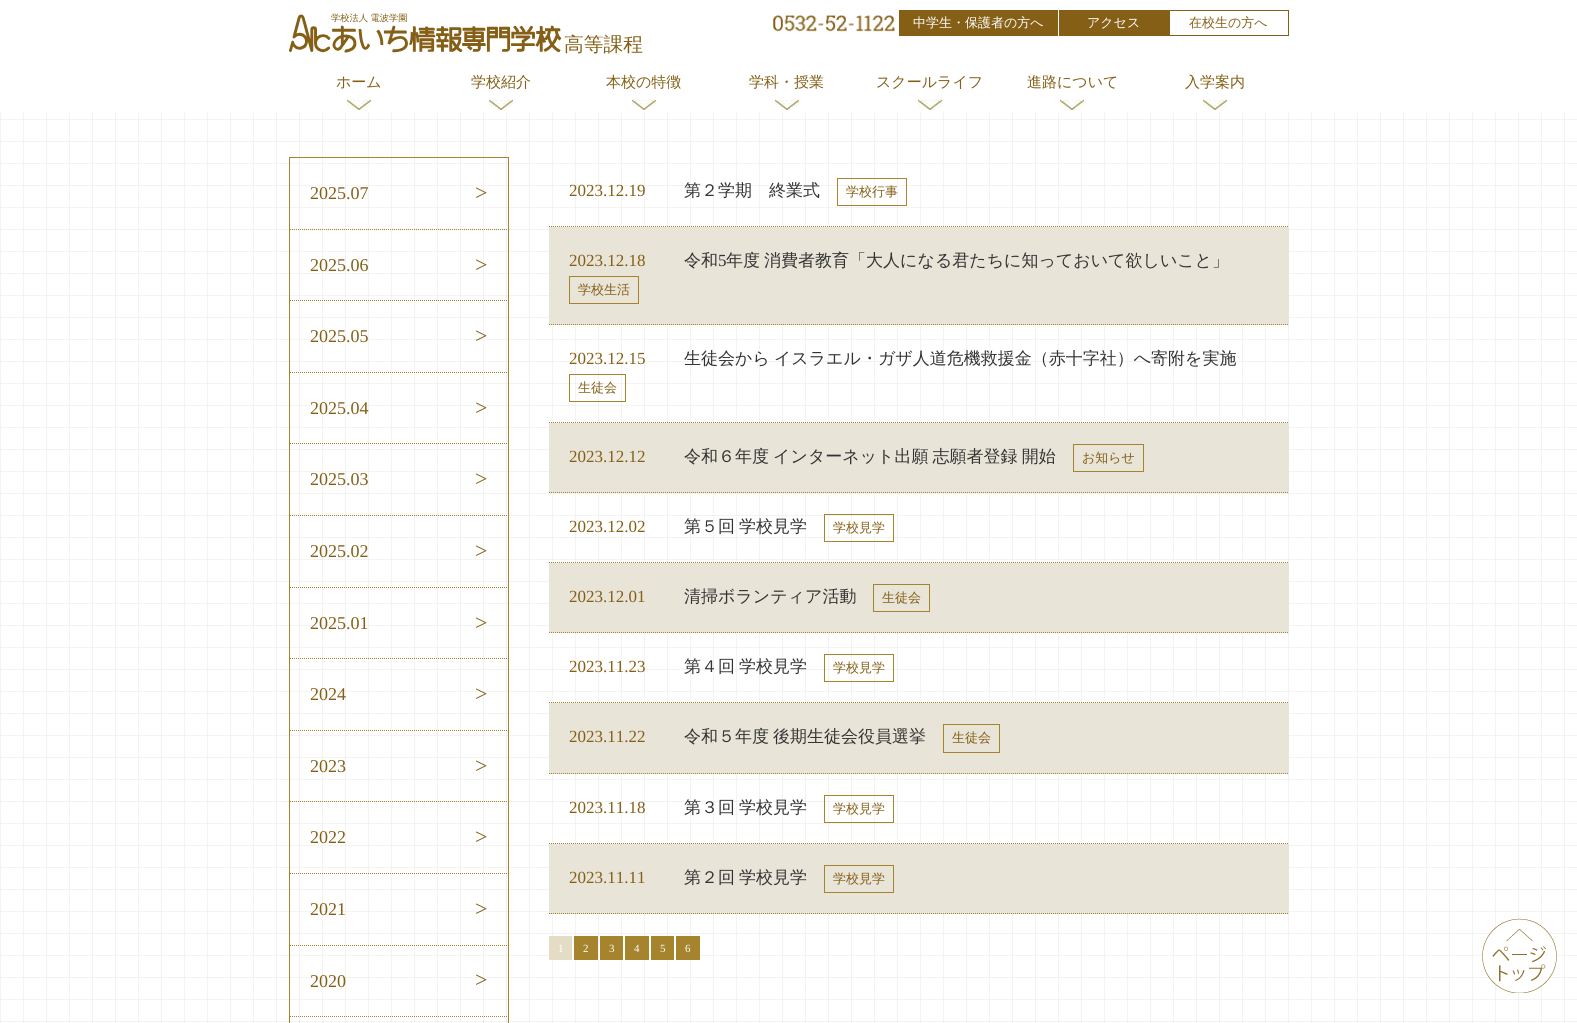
import math
import cairo


def use_color(cr, r, g, b):
  cr.set_source_rgb(r / 255, g / 255, b / 255)

def text(cr, x, y, s, family, size, color, bold=False, italic=False):
  cr.select_font_face(family, cairo.FONT_SLANT_ITALIC if italic else cairo.FONT_SLANT_NORMAL, cairo.FONT_WEIGHT_BOLD if bold else cairo.FONT_WEIGHT_NORMAL)
  cr.set_font_size(size)
  use_color(cr, *color)
  cr.move_to(x, y)
  cr.show_text(s)

def spaced_text(cr, x, y, s, letter, word):
  cr.move_to(x, y)
  for ch in s:
    cr.show_text(ch)
    cr.rel_move_to(letter + word * (ch == ' '), 0)

def box(cr, x, y, w, h, *color):
  use_color(cr, *color)
  cr.rectangle(x, y, w, h)
  cr.fill()

def picture(cr, path, x, y, w, h):
  cr.save()
  cr.set_source_surface(cairo.ImageSurface.create_from_png(path), x, y)
  cr.rectangle(x, y, w, h)
  cr.fill()
  cr.restore()

def draw(cr):
  use_color(cr, 255, 255, 255)
  cr.paint()
  picture(cr, "img_01.png", 289, 13, 354, 41)
  picture(cr, "img_02.png", 773, 15, 122, 17)
  box(cr, 899, 10, 159, 26, 132, 95, 21)
  box(cr, 1059, 10, 110, 26, 132, 95, 21)
  cr.rectangle(1169.5, 10.5, 119, 25)
  cr.set_line_width(1)
  cr.stroke()
  picture(cr, "img_03.png", 347, 99, 24, 11)
  picture(cr, "img_03.png", 489, 99, 24, 11)
  picture(cr, "img_03.png", 632, 99, 24, 11)
  picture(cr, "img_03.png", 775, 99, 24, 11)
  picture(cr, "img_03.png", 918, 99, 24, 11)
  picture(cr, "img_03.png", 1060, 99, 24, 11)
  picture(cr, "img_03.png", 1203, 99, 24, 11)
  picture(cr, "img_04.png", 0, 112, 1577, 911)
  cr.rectangle(289.5, 157.5, 219, 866)
  use_color(cr, 165, 132, 45)
  cr.stroke()
  cr.new_path()
  cr.move_to(290, 229.5)
  cr.line_to(508, 229.5)
  cr.set_dash([1, 1])
  cr.stroke()
  cr.new_path()
  cr.move_to(290, 300.5)
  cr.line_to(508, 300.5)
  cr.stroke()
  cr.new_path()
  cr.move_to(290, 372.5)
  cr.line_to(508, 372.5)
  cr.stroke()
  cr.new_path()
  cr.move_to(290, 443.5)
  cr.line_to(508, 443.5)
  cr.stroke()
  cr.new_path()
  cr.move_to(290, 515.5)
  cr.line_to(508, 515.5)
  cr.stroke()
  cr.new_path()
  cr.move_to(290, 587.5)
  cr.line_to(508, 587.5)
  cr.stroke()
  cr.new_path()
  cr.move_to(290, 658.5)
  cr.line_to(508, 658.5)
  cr.stroke()
  cr.new_path()
  cr.move_to(290, 730.5)
  cr.line_to(508, 730.5)
  cr.stroke()
  cr.new_path()
  cr.move_to(290, 801.5)
  cr.line_to(508, 801.5)
  cr.stroke()
  cr.new_path()
  cr.move_to(290, 873.5)
  cr.line_to(508, 873.5)
  cr.stroke()
  cr.new_path()
  cr.move_to(290, 945.5)
  cr.line_to(508, 945.5)
  cr.stroke()
  cr.new_path()
  cr.move_to(290, 1016.5)
  cr.line_to(508, 1016.5)
  cr.stroke()
  cr.new_path()
  cr.move_to(549, 226.5)
  cr.line_to(1289, 226.5)
  cr.stroke()
  cr.rectangle(837.5, 178.5, 69, 27)
  cr.set_dash([])
  cr.stroke()
  box(cr, 549, 227, 740, 98, 232, 228, 216)
  cr.new_path()
  cr.move_to(549, 324.5)
  cr.line_to(1289, 324.5)
  use_color(cr, 165, 132, 45)
  cr.set_dash([1, 1])
  cr.stroke()
  cr.rectangle(569.5, 276.5, 69, 27)
  cr.set_dash([])
  cr.stroke()
  cr.new_path()
  cr.move_to(549, 422.5)
  cr.line_to(1289, 422.5)
  cr.set_dash([1, 1])
  cr.stroke()
  cr.rectangle(569.5, 374.5, 56, 27)
  cr.set_dash([])
  cr.stroke()
  box(cr, 549, 423, 740, 70, 232, 228, 216)
  cr.new_path()
  cr.move_to(549, 492.5)
  cr.line_to(1289, 492.5)
  use_color(cr, 165, 132, 45)
  cr.set_dash([1, 1])
  cr.stroke()
  cr.rectangle(1073.5, 444.5, 70, 27)
  cr.set_dash([])
  cr.stroke()
  cr.new_path()
  cr.move_to(549, 562.5)
  cr.line_to(1289, 562.5)
  cr.set_dash([1, 1])
  cr.stroke()
  cr.rectangle(824.5, 514.5, 69, 27)
  cr.set_dash([])
  cr.stroke()
  box(cr, 549, 563, 740, 70, 232, 228, 216)
  cr.new_path()
  cr.move_to(549, 632.5)
  cr.line_to(1289, 632.5)
  use_color(cr, 165, 132, 45)
  cr.set_dash([1, 1])
  cr.stroke()
  cr.rectangle(873.5, 584.5, 56, 27)
  cr.set_dash([])
  cr.stroke()
  cr.new_path()
  cr.move_to(549, 702.5)
  cr.line_to(1289, 702.5)
  cr.set_dash([1, 1])
  cr.stroke()
  cr.rectangle(824.5, 654.5, 69, 27)
  cr.set_dash([])
  cr.stroke()
  box(cr, 549, 703, 740, 71, 232, 228, 216)
  cr.new_path()
  cr.move_to(549, 773.5)
  cr.line_to(1289, 773.5)
  use_color(cr, 165, 132, 45)
  cr.set_dash([1, 1])
  cr.stroke()
  cr.rectangle(943.5, 724.5, 56, 28)
  cr.set_dash([])
  cr.stroke()
  cr.new_path()
  cr.move_to(549, 843.5)
  cr.line_to(1289, 843.5)
  cr.set_dash([1, 1])
  cr.stroke()
  cr.rectangle(824.5, 795.5, 69, 27)
  cr.set_dash([])
  cr.stroke()
  box(cr, 549, 844, 740, 70, 232, 228, 216)
  cr.new_path()
  cr.move_to(549, 913.5)
  cr.line_to(1289, 913.5)
  use_color(cr, 165, 132, 45)
  cr.set_dash([1, 1])
  cr.stroke()
  cr.rectangle(824.5, 865.5, 69, 27)
  cr.set_dash([])
  cr.stroke()
  box(cr, 549, 936, 23, 24, 229, 220, 198)
  box(cr, 574, 936, 24, 24, 165, 132, 45)
  box(cr, 600, 936, 23, 24, 165, 132, 45)
  box(cr, 625, 936, 24, 24, 165, 132, 45)
  box(cr, 651, 936, 23, 24, 165, 132, 45)
  box(cr, 676, 936, 24, 24, 165, 132, 45)
  picture(cr, "img_05.png", 1482, 918, 75, 75)
  text(cr, 913, 27, "中学生・保護者の方へ", "WenQuanYi Zen Hei Medium", 13, (255, 255, 255))
  text(cr, 1087, 27, "アクセス", "WenQuanYi Zen Hei Medium", 13, (255, 255, 255))
  text(cr, 1189, 27, "在校生の方へ", "WenQuanYi Zen Hei Medium", 13, (132, 95, 21))
  text(cr, 336, 87, "ホーム", "WenQuanYi Zen Hei Medium", 15, (132, 95, 21))
  text(cr, 471, 87, "学校紹介", "WenQuanYi Zen Hei Medium", 15, (132, 95, 21))
  text(cr, 606, 87, "本校の特徴", "WenQuanYi Zen Hei Medium", 15, (132, 95, 21))
  text(cr, 749, 87, "学科・授業", "WenQuanYi Zen Hei Medium", 15, (132, 95, 21))
  text(cr, 876, 87, "スクールライフ", "WenQuanYi Zen Hei Medium", 15, (132, 95, 21))
  text(cr, 1027, 87, "進路について", "WenQuanYi Zen Hei Medium", 15, (132, 95, 21))
  text(cr, 1185, 87, "入学案内", "WenQuanYi Zen Hei Medium", 15, (132, 95, 21))
  text(cr, 310, 199, "2025.07", "Liberation Serif", 18, (132, 95, 21))
  text(cr, 475, 200, ">", "Liberation Serif", 22, (132, 95, 21))
  text(cr, 310, 271, "2025.06", "Liberation Serif", 18, (132, 95, 21))
  text(cr, 475, 272, ">", "Liberation Serif", 22, (132, 95, 21))
  text(cr, 310, 342, "2025.05", "Liberation Serif", 18, (132, 95, 21))
  text(cr, 475, 343, ">", "Liberation Serif", 22, (132, 95, 21))
  text(cr, 310, 414, "2025.04", "Liberation Serif", 18, (132, 95, 21))
  text(cr, 475, 415, ">", "Liberation Serif", 22, (132, 95, 21))
  text(cr, 310, 485, "2025.03", "Liberation Serif", 18, (132, 95, 21))
  text(cr, 475, 486, ">", "Liberation Serif", 22, (132, 95, 21))
  text(cr, 310, 557, "2025.02", "Liberation Serif", 18, (132, 95, 21))
  text(cr, 475, 558, ">", "Liberation Serif", 22, (132, 95, 21))
  text(cr, 310, 629, "2025.01", "Liberation Serif", 18, (132, 95, 21))
  text(cr, 475, 630, ">", "Liberation Serif", 22, (132, 95, 21))
  text(cr, 310, 700, "2024", "Liberation Serif", 18, (132, 95, 21))
  text(cr, 475, 701, ">", "Liberation Serif", 22, (132, 95, 21))
  text(cr, 310, 772, "2023", "Liberation Serif", 18, (132, 95, 21))
  text(cr, 475, 773, ">", "Liberation Serif", 22, (132, 95, 21))
  text(cr, 310, 843, "2022", "Liberation Serif", 18, (132, 95, 21))
  text(cr, 475, 844, ">", "Liberation Serif", 22, (132, 95, 21))
  text(cr, 310, 915, "2021", "Liberation Serif", 18, (132, 95, 21))
  text(cr, 475, 916, ">", "Liberation Serif", 22, (132, 95, 21))
  text(cr, 310, 987, "2020", "Liberation Serif", 18, (132, 95, 21))
  text(cr, 475, 987, ">", "Liberation Serif", 22, (132, 95, 21))
  text(cr, 569, 196, "2023.12.19", "Liberation Serif", 17, (132, 95, 21))
  text(cr, 684, 196, "第２学期　終業式", "WenQuanYi Zen Hei Medium", 17, (51, 51, 51))
  text(cr, 846, 196, "学校行事", "WenQuanYi Zen Hei Medium", 13, (132, 95, 21))
  text(cr, 569, 266, "2023.12.18", "Liberation Serif", 17, (132, 95, 21))
  text(cr, 684, 266, "令和", "WenQuanYi Zen Hei Medium", 17, (51, 51, 51))
  text(cr, 718, 266, "5", "Liberation Serif", 17, (51, 51, 51))
  cr.select_font_face("WenQuanYi Zen Hei Medium")
  spaced_text(cr, 726, 266, "年度 消費者教育「大人になる君たちに知っておいて欲しいこと」", 0, -1)
  text(cr, 578, 294, "学校生活", "WenQuanYi Zen Hei Medium", 13, (132, 95, 21))
  text(cr, 569, 364, "2023.12.15", "Liberation Serif", 17, (132, 95, 21))
  cr.select_font_face("WenQuanYi Zen Hei Medium")
  use_color(cr, 51, 51, 51)
  spaced_text(cr, 684, 364, "生徒会から イスラエル・ガザ人道危機救援金（赤十字社）へ寄附を実施", 0, -1)
  text(cr, 578, 392, "生徒会", "WenQuanYi Zen Hei Medium", 13, (132, 95, 21))
  text(cr, 569, 462, "2023.12.12", "Liberation Serif", 17, (132, 95, 21))
  cr.select_font_face("WenQuanYi Zen Hei Medium")
  use_color(cr, 51, 51, 51)
  spaced_text(cr, 684, 462, "令和６年度 インターネット出願 志願者登録 開始", 0, -1)
  text(cr, 1082, 462, "お知らせ", "WenQuanYi Zen Hei Medium", 13, (132, 95, 21))
  text(cr, 569, 532, "2023.12.02", "Liberation Serif", 17, (132, 95, 21))
  cr.select_font_face("WenQuanYi Zen Hei Medium")
  use_color(cr, 51, 51, 51)
  spaced_text(cr, 684, 532, "第５回 学校見学", 0, -1)
  text(cr, 833, 532, "学校見学", "WenQuanYi Zen Hei Medium", 13, (132, 95, 21))
  text(cr, 569, 602, "2023.12.01", "Liberation Serif", 17, (132, 95, 21))
  text(cr, 684, 602, "清掃ボランティア活動", "WenQuanYi Zen Hei Medium", 17, (51, 51, 51))
  text(cr, 882, 602, "生徒会", "WenQuanYi Zen Hei Medium", 13, (132, 95, 21))
  text(cr, 569, 672, "2023.11.23", "Liberation Serif", 17, (132, 95, 21))
  cr.select_font_face("WenQuanYi Zen Hei Medium")
  use_color(cr, 51, 51, 51)
  spaced_text(cr, 684, 672, "第４回 学校見学", 0, -1)
  text(cr, 833, 672, "学校見学", "WenQuanYi Zen Hei Medium", 13, (132, 95, 21))
  text(cr, 569, 742, "2023.11.22", "Liberation Serif", 17, (132, 95, 21))
  cr.select_font_face("WenQuanYi Zen Hei Medium")
  use_color(cr, 51, 51, 51)
  spaced_text(cr, 684, 742, "令和５年度 後期生徒会役員選挙", 0, -1)
  text(cr, 952, 742, "生徒会", "WenQuanYi Zen Hei Medium", 13, (132, 95, 21))
  text(cr, 569, 813, "2023.11.18", "Liberation Serif", 17, (132, 95, 21))
  cr.select_font_face("WenQuanYi Zen Hei Medium")
  use_color(cr, 51, 51, 51)
  spaced_text(cr, 684, 813, "第３回 学校見学", 0, -1)
  text(cr, 833, 813, "学校見学", "WenQuanYi Zen Hei Medium", 13, (132, 95, 21))
  text(cr, 569, 883, "2023.11.11", "Liberation Serif", 17, (132, 95, 21))
  cr.select_font_face("WenQuanYi Zen Hei Medium")
  use_color(cr, 51, 51, 51)
  spaced_text(cr, 684, 883, "第２回 学校見学", 0, -1)
  text(cr, 833, 883, "学校見学", "WenQuanYi Zen Hei Medium", 13, (132, 95, 21))
  text(cr, 558, 952, "1", "Liberation Serif", 11, (255, 255, 255))
  text(cr, 583, 952, "2", "Liberation Serif", 11, (255, 255, 255))
  text(cr, 609, 952, "3", "Liberation Serif", 11, (255, 255, 255))
  text(cr, 634, 952, "4", "Liberation Serif", 11, (255, 255, 255))
  text(cr, 660, 952, "5", "Liberation Serif", 11, (255, 255, 255))
  text(cr, 685, 952, "6", "Liberation Serif", 11, (255, 255, 255))


surface = cairo.ImageSurface(cairo.FORMAT_RGB24, 1577, 1023)
cr = cairo.Context(surface)
options = cairo.FontOptions()
options.set_hint_metrics(cairo.HINT_METRICS_OFF)
options.set_hint_style(cairo.HINT_STYLE_NONE)
cr.set_font_options(options)
cr.set_miter_limit(4)
draw(cr)
surface.write_to_png("out.png")
